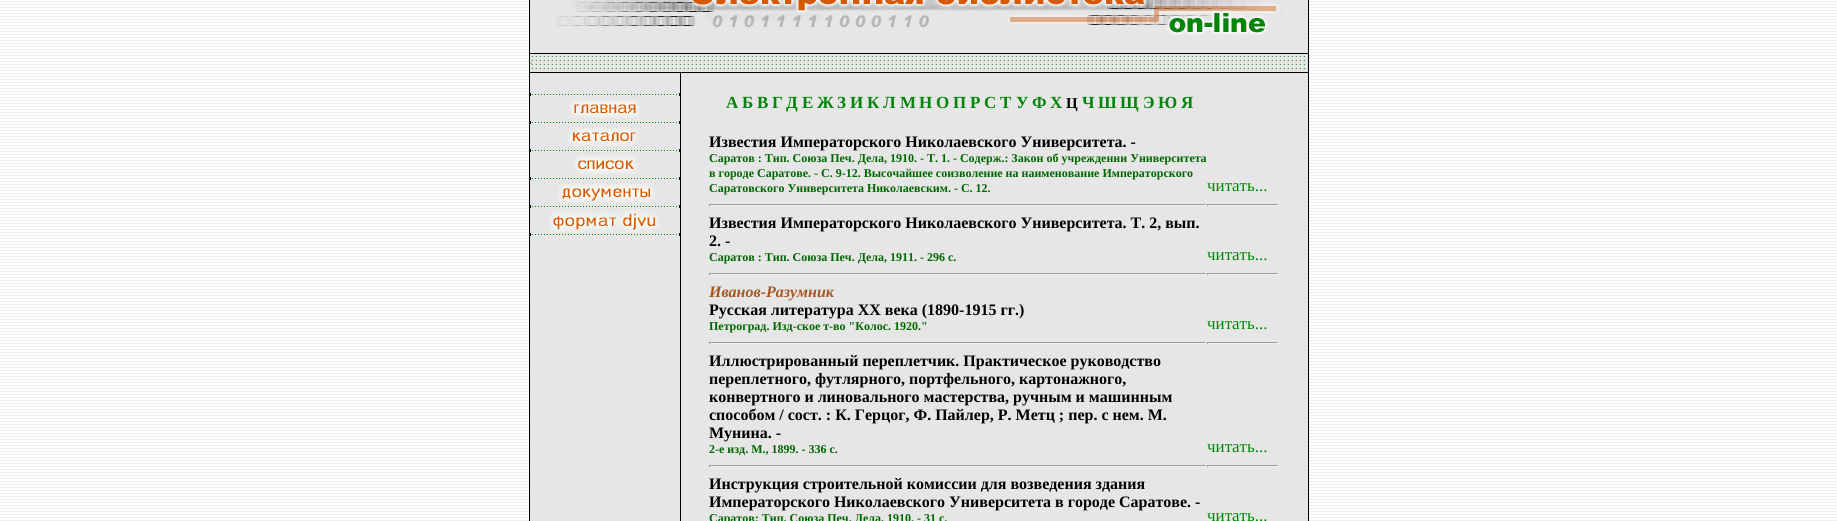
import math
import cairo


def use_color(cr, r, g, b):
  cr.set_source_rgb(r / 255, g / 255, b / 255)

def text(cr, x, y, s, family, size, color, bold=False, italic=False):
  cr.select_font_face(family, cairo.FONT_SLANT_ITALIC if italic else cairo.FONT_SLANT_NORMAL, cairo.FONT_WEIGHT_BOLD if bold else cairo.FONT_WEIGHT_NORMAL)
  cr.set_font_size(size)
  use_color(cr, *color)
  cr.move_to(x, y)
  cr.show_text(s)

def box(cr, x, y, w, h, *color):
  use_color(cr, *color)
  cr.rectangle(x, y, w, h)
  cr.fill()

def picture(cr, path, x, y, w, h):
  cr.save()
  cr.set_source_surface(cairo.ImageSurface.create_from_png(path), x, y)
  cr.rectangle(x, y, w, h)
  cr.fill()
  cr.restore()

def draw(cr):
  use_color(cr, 255, 255, 255)
  cr.paint()
  picture(cr, "img_01.png", 0, 1, 1837, 520)
  box(cr, 530, 0, 778, 521, 230, 230, 230)
  box(cr, 1308, 0, 1, 53, 0, 0, 0)
  box(cr, 529, 0, 1, 53, 0, 0, 0)
  picture(cr, "img_02.png", 556, 0, 731, 35)
  picture(cr, "img_03.png", 531, 55, 777, 17)
  cr.rectangle(529.5, 53.5, 779, 19)
  cr.set_line_width(1)
  cr.stroke()
  picture(cr, "img_04.png", 530, 62, 2, 2)
  box(cr, 680, 73, 1, 448, 0, 0, 0)
  box(cr, 529, 73, 1, 448, 0, 0, 0)
  picture(cr, "img_05.png", 532, 94, 147, 1)
  box(cr, 679, 93, 1, 3, 0, 0, 0)
  box(cr, 530, 93, 1, 3, 0, 0, 0)
  picture(cr, "img_06.png", 570, 100, 70, 18)
  picture(cr, "img_05.png", 532, 122, 147, 1)
  box(cr, 679, 121, 1, 3, 0, 0, 0)
  box(cr, 530, 121, 1, 3, 0, 0, 0)
  picture(cr, "img_07.png", 568, 128, 70, 18)
  picture(cr, "img_05.png", 532, 150, 147, 1)
  box(cr, 679, 149, 1, 3, 0, 0, 0)
  box(cr, 530, 149, 1, 3, 0, 0, 0)
  picture(cr, "img_08.png", 574, 155, 63, 19)
  picture(cr, "img_05.png", 532, 178, 147, 1)
  box(cr, 679, 177, 1, 3, 0, 0, 0)
  box(cr, 530, 177, 1, 3, 0, 0, 0)
  picture(cr, "img_09.png", 558, 184, 97, 20)
  picture(cr, "img_05.png", 532, 206, 147, 1)
  box(cr, 679, 205, 1, 3, 0, 0, 0)
  box(cr, 530, 205, 1, 3, 0, 0, 0)
  picture(cr, "img_10.png", 549, 210, 111, 23)
  picture(cr, "img_05.png", 532, 234, 147, 1)
  box(cr, 679, 233, 1, 3, 0, 0, 0)
  box(cr, 530, 233, 1, 3, 0, 0, 0)
  box(cr, 1308, 73, 1, 448, 0, 0, 0)
  box(cr, 709, 204, 570, 1, 159, 159, 159)
  box(cr, 1206, 204, 1, 2, 238, 238, 238)
  box(cr, 709, 205, 498, 1, 238, 238, 238)
  box(cr, 709, 204, 1, 2, 159, 159, 159)
  box(cr, 1278, 204, 1, 2, 238, 238, 238)
  box(cr, 1207, 205, 72, 1, 238, 238, 238)
  box(cr, 1207, 204, 1, 2, 159, 159, 159)
  box(cr, 709, 273, 570, 1, 159, 159, 159)
  box(cr, 1206, 273, 1, 2, 238, 238, 238)
  box(cr, 709, 274, 498, 1, 238, 238, 238)
  box(cr, 709, 273, 1, 2, 159, 159, 159)
  box(cr, 1278, 273, 1, 2, 238, 238, 238)
  box(cr, 1207, 274, 72, 1, 238, 238, 238)
  box(cr, 1207, 273, 1, 2, 159, 159, 159)
  box(cr, 709, 342, 570, 1, 159, 159, 159)
  box(cr, 1206, 342, 1, 2, 238, 238, 238)
  box(cr, 709, 343, 498, 1, 238, 238, 238)
  box(cr, 709, 342, 1, 2, 159, 159, 159)
  box(cr, 1278, 342, 1, 2, 238, 238, 238)
  box(cr, 1207, 343, 72, 1, 238, 238, 238)
  box(cr, 1207, 342, 1, 2, 159, 159, 159)
  box(cr, 709, 465, 570, 1, 159, 159, 159)
  box(cr, 1206, 465, 1, 2, 238, 238, 238)
  box(cr, 709, 466, 498, 1, 238, 238, 238)
  box(cr, 709, 465, 1, 2, 159, 159, 159)
  box(cr, 1278, 465, 1, 2, 238, 238, 238)
  box(cr, 1207, 466, 72, 1, 238, 238, 238)
  box(cr, 1207, 465, 1, 2, 159, 159, 159)
  text(cr, 726, 108, "А", "Liberation Serif", 17, (2, 133, 8), bold=True)
  text(cr, 742, 108, "Б", "Liberation Serif", 17, (2, 133, 8), bold=True)
  text(cr, 757, 108, "В", "Liberation Serif", 17, (2, 133, 8), bold=True)
  text(cr, 772, 108, "Г", "Liberation Serif", 17, (2, 133, 8), bold=True)
  text(cr, 786, 108, "Д", "Liberation Serif", 17, (2, 133, 8), bold=True)
  text(cr, 802, 108, "Е", "Liberation Serif", 17, (2, 133, 8), bold=True)
  text(cr, 817, 108, "Ж", "Liberation Serif", 17, (2, 133, 8), bold=True)
  text(cr, 837, 108, "З", "Liberation Serif", 17, (2, 133, 8), bold=True)
  text(cr, 850, 108, "И", "Liberation Serif", 17, (2, 133, 8), bold=True)
  text(cr, 867, 108, "К", "Liberation Serif", 17, (2, 133, 8), bold=True)
  text(cr, 883, 108, "Л", "Liberation Serif", 17, (2, 133, 8), bold=True)
  text(cr, 900, 108, "М", "Liberation Serif", 17, (2, 133, 8), bold=True)
  text(cr, 919, 108, "Н", "Liberation Serif", 17, (2, 133, 8), bold=True)
  text(cr, 936, 108, "О", "Liberation Serif", 17, (2, 133, 8), bold=True)
  text(cr, 953, 108, "П", "Liberation Serif", 17, (2, 133, 8), bold=True)
  text(cr, 970, 108, "Р", "Liberation Serif", 17, (2, 133, 8), bold=True)
  text(cr, 984, 108, "С", "Liberation Serif", 17, (2, 133, 8), bold=True)
  text(cr, 1000, 108, "Т", "Liberation Serif", 17, (2, 133, 8), bold=True)
  text(cr, 1016, 108, "У", "Liberation Serif", 17, (2, 133, 8), bold=True)
  text(cr, 1032, 108, "Ф", "Liberation Serif", 17, (2, 133, 8), bold=True)
  text(cr, 1050, 108, "Х", "Liberation Serif", 17, (2, 133, 8), bold=True)
  text(cr, 1066, 108, "Ц", "Liberation Serif", 15, (0, 0, 0), bold=True)
  text(cr, 1082, 108, "Ч", "Liberation Serif", 17, (2, 133, 8), bold=True)
  text(cr, 1098, 108, "Ш", "Liberation Serif", 17, (2, 133, 8), bold=True)
  text(cr, 1120, 108, "Щ", "Liberation Serif", 17, (2, 133, 8), bold=True)
  text(cr, 1143, 108, "Э", "Liberation Serif", 17, (2, 133, 8), bold=True)
  text(cr, 1158, 108, "Ю", "Liberation Serif", 17, (2, 133, 8), bold=True)
  text(cr, 1181, 108, "Я", "Liberation Serif", 17, (2, 133, 8), bold=True)
  text(cr, 709, 147, "Известия Императорского Николаевского Университета. -", "Liberation Serif", 16, (0, 0, 0), bold=True)
  text(cr, 709, 162, "Саратов : Тип. Союза Печ. Дела, 1910. - Т. 1. - Содерж.: Закон об учреждении Университета", "Liberation Serif", 12, (0, 102, 0), bold=True)
  text(cr, 709, 177, "в городе Саратове. - С. 9-12. Высочайшее соизволение на наименование Императорского", "Liberation Serif", 12, (0, 102, 0), bold=True)
  text(cr, 709, 192, "Саратовского Университета Николаевским. - С. 12.", "Liberation Serif", 12, (0, 102, 0), bold=True)
  text(cr, 1207, 191, "читать...", "Liberation Serif", 17, (2, 133, 8))
  text(cr, 709, 228, "Известия Императорского Николаевского Университета. Т. 2, вып.", "Liberation Serif", 16, (0, 0, 0), bold=True)
  text(cr, 709, 246, "2. -", "Liberation Serif", 16, (0, 0, 0), bold=True)
  text(cr, 709, 261, "Саратов : Тип. Союза Печ. Дела, 1911. - 296 с.", "Liberation Serif", 12, (0, 102, 0), bold=True)
  text(cr, 1207, 260, "читать...", "Liberation Serif", 17, (2, 133, 8))
  text(cr, 709, 297, "Иванов-Разумник", "Liberation Serif", 16, (167, 87, 34), bold=True, italic=True)
  text(cr, 709, 315, "Русская литература XX века (1890-1915 гг.)", "Liberation Serif", 16, (0, 0, 0), bold=True)
  text(cr, 709, 330, "Петроград. Изд-ское т-во \"Колос. 1920.\"", "Liberation Serif", 12, (0, 102, 0), bold=True)
  text(cr, 1207, 329, "читать...", "Liberation Serif", 17, (2, 133, 8))
  text(cr, 709, 366, "Иллюстрированный переплетчик. Практическое руководство", "Liberation Serif", 16, (0, 0, 0), bold=True)
  text(cr, 709, 384, "переплетного, футлярного, портфельного, картонажного,", "Liberation Serif", 16, (0, 0, 0), bold=True)
  text(cr, 709, 402, "конвертного и линовального мастерства, ручным и машинным", "Liberation Serif", 16, (0, 0, 0), bold=True)
  text(cr, 709, 420, "способом / сост. : К. Герцог, Ф. Пайлер, Р. Метц ; пер. с нем. М.", "Liberation Serif", 16, (0, 0, 0), bold=True)
  text(cr, 709, 438, "Мунина. -", "Liberation Serif", 16, (0, 0, 0), bold=True)
  text(cr, 709, 453, "2-е изд. М., 1899. - 336 с.", "Liberation Serif", 12, (0, 102, 0), bold=True)
  text(cr, 1207, 452, "читать...", "Liberation Serif", 17, (2, 133, 8))
  text(cr, 709, 489, "Инструкция строительной комиссии для возведения здания", "Liberation Serif", 16, (0, 0, 0), bold=True)
  text(cr, 709, 507, "Императорского Николаевского Университета в городе Саратове. -", "Liberation Serif", 16, (0, 0, 0), bold=True)
  text(cr, 709, 522, "Саратов: Тип. Союза Печ. Дела, 1910. - 31 с.", "Liberation Serif", 12, (0, 102, 0), bold=True)
  text(cr, 1207, 521, "читать...", "Liberation Serif", 17, (2, 133, 8))


surface = cairo.ImageSurface(cairo.FORMAT_RGB24, 1837, 521)
cr = cairo.Context(surface)
options = cairo.FontOptions()
options.set_hint_metrics(cairo.HINT_METRICS_OFF)
options.set_hint_style(cairo.HINT_STYLE_NONE)
cr.set_font_options(options)
cr.set_miter_limit(4)
draw(cr)
surface.write_to_png("out.png")
